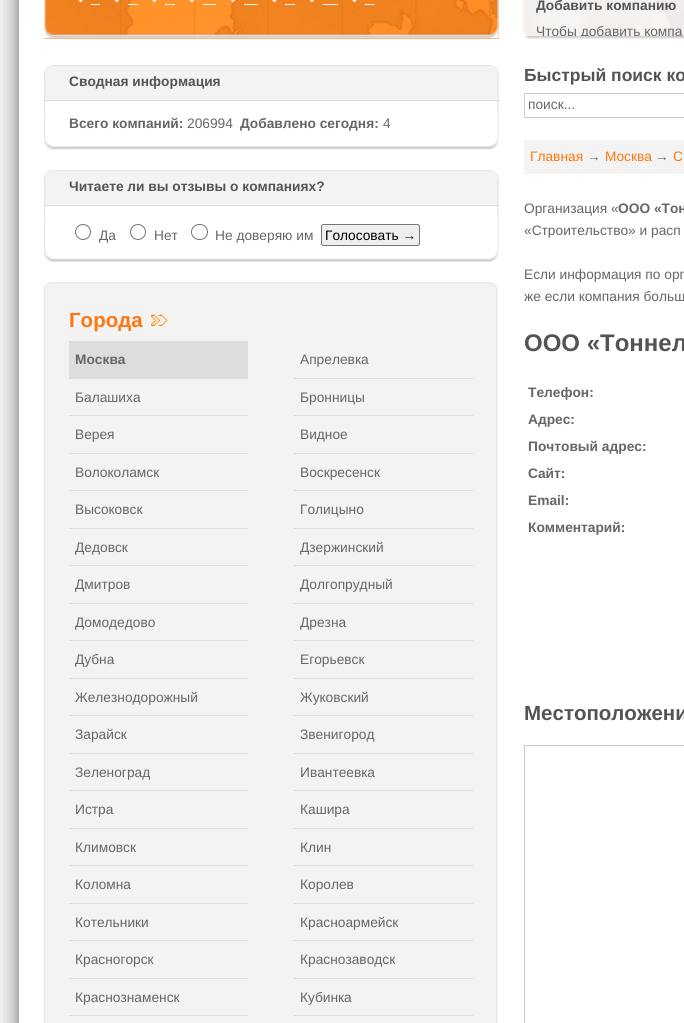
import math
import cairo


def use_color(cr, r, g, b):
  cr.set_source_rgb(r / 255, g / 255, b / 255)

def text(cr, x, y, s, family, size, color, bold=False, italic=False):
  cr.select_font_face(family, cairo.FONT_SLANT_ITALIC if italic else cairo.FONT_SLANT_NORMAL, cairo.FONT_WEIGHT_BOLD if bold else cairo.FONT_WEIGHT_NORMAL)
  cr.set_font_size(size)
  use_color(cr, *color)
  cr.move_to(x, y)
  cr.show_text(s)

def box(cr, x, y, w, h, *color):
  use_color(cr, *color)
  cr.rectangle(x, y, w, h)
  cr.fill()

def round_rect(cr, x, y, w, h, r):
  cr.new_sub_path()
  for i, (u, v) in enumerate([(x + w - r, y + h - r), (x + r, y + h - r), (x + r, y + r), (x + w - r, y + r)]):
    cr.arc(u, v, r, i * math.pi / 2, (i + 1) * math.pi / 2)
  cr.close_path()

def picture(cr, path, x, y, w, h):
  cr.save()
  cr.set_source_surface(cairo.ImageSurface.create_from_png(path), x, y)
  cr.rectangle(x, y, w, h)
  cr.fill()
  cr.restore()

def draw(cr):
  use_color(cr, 239, 239, 239)
  cr.paint()
  picture(cr, "img_01.png", 3, 0, 16, 1023)
  box(cr, 19, 0, 665, 1023, 255, 255, 255)
  box(cr, 44, 0, 455, 39, 255, 118, 14)
  picture(cr, "img_02.png", 43, 0, 456, 39)
  picture(cr, "img_03.png", 78, 0, 5, 3)
  box(cr, 91, 4, 9, 1, 255, 255, 255)
  picture(cr, "img_04.png", 114, 0, 5, 3)
  box(cr, 128, 4, 10, 1, 255, 255, 255)
  picture(cr, "img_05.png", 152, 0, 5, 3)
  box(cr, 165, 4, 10, 1, 255, 255, 255)
  picture(cr, "img_06.png", 189, 0, 5, 3)
  box(cr, 203, 4, 13, 1, 255, 255, 255)
  picture(cr, "img_07.png", 231, 0, 5, 3)
  box(cr, 244, 4, 14, 1, 255, 255, 255)
  picture(cr, "img_08.png", 272, 0, 5, 3)
  box(cr, 285, 4, 10, 1, 255, 255, 255)
  picture(cr, "img_09.png", 309, 0, 5, 3)
  box(cr, 323, 4, 15, 1, 255, 255, 255)
  picture(cr, "img_10.png", 352, 0, 5, 3)
  box(cr, 365, 4, 9, 1, 255, 255, 255)
  picture(cr, "img_11.png", 523, 0, 161, 39)
  picture(cr, "img_12.png", 44, 65, 455, 85)
  picture(cr, "img_13.png", 44, 112, 28, 38)
  picture(cr, "img_14.png", 44, 65, 455, 48)
  picture(cr, "img_15.png", 44, 65, 8, 47)
  box(cr, 44, 100, 455, 1, 221, 221, 221)
  picture(cr, "img_16.png", 53, 170, 446, 92)
  picture(cr, "img_17.png", 44, 217, 9, 45)
  picture(cr, "img_14.png", 44, 170, 455, 48)
  picture(cr, "img_15.png", 44, 170, 8, 47)
  box(cr, 44, 205, 455, 1, 221, 221, 221)
  cr.arc(83, 232, 7.5, 0, 2 * math.pi)
  use_color(cr, 118, 118, 118)
  cr.set_line_width(1)
  cr.stroke()
  cr.arc(138, 232, 7.5, 0, 2 * math.pi)
  cr.stroke()
  round_rect(cr, 191.5, 224.5, 16, 15, 7.5)
  cr.stroke()
  use_color(cr, 239, 239, 239)
  round_rect(cr, 321.5, 224.5, 98, 21, 2)
  cr.fill_preserve()
  use_color(cr, 118, 118, 118)
  cr.stroke()
  picture(cr, "img_18.png", 43, 282, 455, 741)
  picture(cr, "img_19.png", 44, 282, 454, 6)
  picture(cr, "img_20.png", 151, 314, 17, 12)
  box(cr, 69, 341, 179, 38, 221, 221, 221)
  box(cr, 294, 378, 179, 1, 221, 221, 221)
  box(cr, 69, 415, 179, 1, 221, 221, 221)
  box(cr, 294, 415, 179, 1, 221, 221, 221)
  box(cr, 69, 453, 179, 1, 221, 221, 221)
  box(cr, 294, 453, 179, 1, 221, 221, 221)
  box(cr, 69, 490, 179, 1, 221, 221, 221)
  box(cr, 294, 490, 179, 1, 221, 221, 221)
  box(cr, 69, 528, 179, 1, 221, 221, 221)
  box(cr, 294, 528, 179, 1, 221, 221, 221)
  box(cr, 69, 565, 179, 1, 221, 221, 221)
  box(cr, 294, 565, 179, 1, 221, 221, 221)
  box(cr, 69, 603, 179, 1, 221, 221, 221)
  box(cr, 294, 603, 179, 1, 221, 221, 221)
  box(cr, 69, 640, 179, 1, 221, 221, 221)
  box(cr, 294, 640, 179, 1, 221, 221, 221)
  box(cr, 69, 678, 179, 1, 221, 221, 221)
  box(cr, 294, 678, 179, 1, 221, 221, 221)
  box(cr, 69, 715, 179, 1, 221, 221, 221)
  box(cr, 294, 715, 179, 1, 221, 221, 221)
  box(cr, 69, 753, 179, 1, 221, 221, 221)
  box(cr, 294, 753, 179, 1, 221, 221, 221)
  box(cr, 69, 790, 179, 1, 221, 221, 221)
  box(cr, 294, 790, 179, 1, 221, 221, 221)
  box(cr, 69, 828, 179, 1, 221, 221, 221)
  box(cr, 294, 828, 179, 1, 221, 221, 221)
  box(cr, 69, 865, 179, 1, 221, 221, 221)
  box(cr, 294, 865, 179, 1, 221, 221, 221)
  box(cr, 69, 903, 179, 1, 221, 221, 221)
  box(cr, 294, 903, 179, 1, 221, 221, 221)
  box(cr, 69, 940, 179, 1, 221, 221, 221)
  box(cr, 294, 940, 179, 1, 221, 221, 221)
  box(cr, 69, 978, 179, 1, 221, 221, 221)
  box(cr, 294, 978, 179, 1, 221, 221, 221)
  box(cr, 69, 1015, 179, 1, 221, 221, 221)
  box(cr, 294, 1015, 179, 1, 221, 221, 221)
  cr.rectangle(524.5, 93.5, 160, 24)
  use_color(cr, 204, 204, 204)
  cr.stroke()
  box(cr, 524, 140, 160, 34, 243, 243, 243)
  cr.rectangle(524.5, 745.5, 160, 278)
  use_color(cr, 200, 200, 200)
  cr.stroke()
  text(cr, 536, 10, "Добавить компанию", "Liberation Sans", 13.75, (84, 84, 84), bold=True)
  cr.save()
  cr.rectangle(524, 0, 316, 36)
  cr.clip()
  text(cr, 536, 36, "Чтобы добавить компа", "Liberation Sans", 13.75, (102, 102, 102))
  cr.restore()
  text(cr, 69, 86, "Сводная информация", "Liberation Sans", 13.75, (84, 84, 84), bold=True)
  text(cr, 69, 128, "Всего компаний:", "Liberation Sans", 13.75, (102, 102, 102), bold=True)
  text(cr, 187, 128, "206994", "Liberation Sans", 13.75, (102, 102, 102))
  text(cr, 240, 128, "Добавлено сегодня:", "Liberation Sans", 13.75, (102, 102, 102), bold=True)
  text(cr, 383, 128, "4", "Liberation Sans", 13.75, (102, 102, 102))
  text(cr, 69, 191, "Читаете ли вы отзывы о компаниях?", "Liberation Sans", 13.75, (84, 84, 84), bold=True)
  text(cr, 99, 240, "Да", "Liberation Sans", 13.75, (102, 102, 102))
  text(cr, 154, 240, "Нет", "Liberation Sans", 13.75, (102, 102, 102))
  text(cr, 215, 240, "Не доверяю им", "Liberation Sans", 13.75, (102, 102, 102))
  text(cr, 325, 240, "Голосовать →", "Liberation Sans", 13.75, (0, 0, 0))
  text(cr, 69, 327, "Города", "Liberation Sans", 20.5, (255, 118, 14), bold=True)
  text(cr, 75, 364, "Москва", "Liberation Sans", 13.75, (102, 102, 102), bold=True)
  text(cr, 300, 364, "Апрелевка", "Liberation Sans", 13.75, (102, 102, 102))
  text(cr, 75, 402, "Балашиха", "Liberation Sans", 13.75, (102, 102, 102))
  text(cr, 300, 402, "Бронницы", "Liberation Sans", 13.75, (102, 102, 102))
  text(cr, 75, 439, "Верея", "Liberation Sans", 13.75, (102, 102, 102))
  text(cr, 300, 439, "Видное", "Liberation Sans", 13.75, (102, 102, 102))
  text(cr, 75, 477, "Волоколамск", "Liberation Sans", 13.75, (102, 102, 102))
  text(cr, 300, 477, "Воскресенск", "Liberation Sans", 13.75, (102, 102, 102))
  text(cr, 75, 514, "Высоковск", "Liberation Sans", 13.75, (102, 102, 102))
  text(cr, 300, 514, "Голицыно", "Liberation Sans", 13.75, (102, 102, 102))
  text(cr, 75, 552, "Дедовск", "Liberation Sans", 13.75, (102, 102, 102))
  text(cr, 300, 552, "Дзержинский", "Liberation Sans", 13.75, (102, 102, 102))
  text(cr, 75, 589, "Дмитров", "Liberation Sans", 13.75, (102, 102, 102))
  text(cr, 300, 589, "Долгопрудный", "Liberation Sans", 13.75, (102, 102, 102))
  text(cr, 75, 627, "Домодедово", "Liberation Sans", 13.75, (102, 102, 102))
  text(cr, 300, 627, "Дрезна", "Liberation Sans", 13.75, (102, 102, 102))
  text(cr, 75, 664, "Дубна", "Liberation Sans", 13.75, (102, 102, 102))
  text(cr, 300, 664, "Егорьевск", "Liberation Sans", 13.75, (102, 102, 102))
  text(cr, 75, 702, "Железнодорожный", "Liberation Sans", 13.75, (102, 102, 102))
  text(cr, 300, 702, "Жуковский", "Liberation Sans", 13.75, (102, 102, 102))
  text(cr, 75, 739, "Зарайск", "Liberation Sans", 13.75, (102, 102, 102))
  text(cr, 300, 739, "Звенигород", "Liberation Sans", 13.75, (102, 102, 102))
  text(cr, 75, 777, "Зеленоград", "Liberation Sans", 13.75, (102, 102, 102))
  text(cr, 300, 777, "Ивантеевка", "Liberation Sans", 13.75, (102, 102, 102))
  text(cr, 75, 814, "Истра", "Liberation Sans", 13.75, (102, 102, 102))
  text(cr, 300, 814, "Кашира", "Liberation Sans", 13.75, (102, 102, 102))
  text(cr, 75, 852, "Климовск", "Liberation Sans", 13.75, (102, 102, 102))
  text(cr, 300, 852, "Клин", "Liberation Sans", 13.75, (102, 102, 102))
  text(cr, 75, 889, "Коломна", "Liberation Sans", 13.75, (102, 102, 102))
  text(cr, 300, 889, "Королев", "Liberation Sans", 13.75, (102, 102, 102))
  text(cr, 75, 927, "Котельники", "Liberation Sans", 13.75, (102, 102, 102))
  text(cr, 300, 927, "Красноармейск", "Liberation Sans", 13.75, (102, 102, 102))
  text(cr, 75, 964, "Красногорск", "Liberation Sans", 13.75, (102, 102, 102))
  text(cr, 300, 964, "Краснозаводск", "Liberation Sans", 13.75, (102, 102, 102))
  text(cr, 75, 1002, "Краснознаменск", "Liberation Sans", 13.75, (102, 102, 102))
  text(cr, 300, 1002, "Кубинка", "Liberation Sans", 13.75, (102, 102, 102))
  text(cr, 524, 81, "Быстрый поиск ко", "Liberation Sans", 17.5, (84, 84, 84), bold=True)
  text(cr, 528, 109, "поиск...", "Liberation Sans", 13.75, (102, 102, 102))
  text(cr, 530, 161, "Главная", "Liberation Sans", 13.75, (255, 118, 14))
  text(cr, 587, 161, "→", "Liberation Sans", 13.75, (102, 102, 102))
  text(cr, 605, 161, "Москва", "Liberation Sans", 13.75, (255, 118, 14))
  text(cr, 655, 161, "→", "Liberation Sans", 13.75, (102, 102, 102))
  text(cr, 673, 161, "С", "Liberation Sans", 13.75, (255, 118, 14))
  text(cr, 524, 213, "Организация «", "Liberation Sans", 13.75, (102, 102, 102))
  text(cr, 618, 213, "ООО «Тон", "Liberation Sans", 13.75, (102, 102, 102), bold=True)
  text(cr, 524, 235, "«Строительство» и расп", "Liberation Sans", 13.75, (102, 102, 102))
  text(cr, 524, 279, "Если информация по орг", "Liberation Sans", 13.75, (102, 102, 102))
  text(cr, 524, 301, "же если компания больш", "Liberation Sans", 13.75, (102, 102, 102))
  text(cr, 524, 351, "ООО «Тоннел", "Liberation Sans", 24, (84, 84, 84), bold=True)
  text(cr, 528, 397, "Телефон:", "Liberation Sans", 13.75, (102, 102, 102), bold=True)
  text(cr, 528, 424, "Адрес:", "Liberation Sans", 13.75, (102, 102, 102), bold=True)
  text(cr, 528, 451, "Почтовый адрес:", "Liberation Sans", 13.75, (102, 102, 102), bold=True)
  text(cr, 528, 478, "Сайт:", "Liberation Sans", 13.75, (102, 102, 102), bold=True)
  text(cr, 528, 505, "Email:", "Liberation Sans", 13.75, (102, 102, 102), bold=True)
  text(cr, 528, 532, "Комментарий:", "Liberation Sans", 13.75, (102, 102, 102), bold=True)
  text(cr, 524, 720, "Местоположени", "Liberation Sans", 20.5, (84, 84, 84), bold=True)


surface = cairo.ImageSurface(cairo.FORMAT_RGB24, 684, 1023)
cr = cairo.Context(surface)
options = cairo.FontOptions()
options.set_hint_metrics(cairo.HINT_METRICS_OFF)
options.set_hint_style(cairo.HINT_STYLE_NONE)
cr.set_font_options(options)
cr.set_miter_limit(4)
draw(cr)
surface.write_to_png("out.png")
